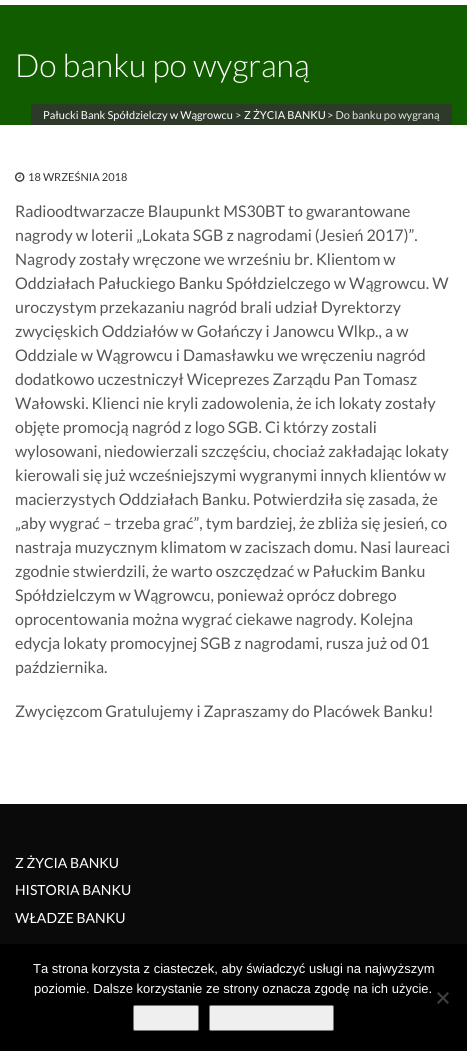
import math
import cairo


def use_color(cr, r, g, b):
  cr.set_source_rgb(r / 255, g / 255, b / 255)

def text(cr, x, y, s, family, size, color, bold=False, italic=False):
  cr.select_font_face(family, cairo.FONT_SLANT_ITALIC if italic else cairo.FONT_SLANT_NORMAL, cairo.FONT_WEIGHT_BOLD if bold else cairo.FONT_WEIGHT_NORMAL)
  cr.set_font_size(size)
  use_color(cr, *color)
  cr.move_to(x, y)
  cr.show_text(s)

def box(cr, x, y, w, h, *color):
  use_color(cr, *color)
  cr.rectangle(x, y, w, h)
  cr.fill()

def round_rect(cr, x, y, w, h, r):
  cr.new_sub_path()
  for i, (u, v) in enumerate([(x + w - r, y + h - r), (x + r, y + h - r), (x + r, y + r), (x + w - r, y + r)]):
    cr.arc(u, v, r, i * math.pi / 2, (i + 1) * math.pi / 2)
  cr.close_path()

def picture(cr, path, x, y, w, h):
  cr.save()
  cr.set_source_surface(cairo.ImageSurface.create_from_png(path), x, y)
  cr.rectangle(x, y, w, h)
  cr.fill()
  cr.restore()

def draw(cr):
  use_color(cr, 255, 255, 255)
  cr.paint()
  box(cr, 0, 5, 467, 120, 18, 92, 0)
  use_color(cr, 45, 58, 42)
  cr.new_path()
  cr.move_to(33, 104)
  cr.line_to(450, 104)
  cr.curve_to(451, 104, 452, 105, 452, 106)
  cr.line_to(452, 125)
  cr.line_to(31, 125)
  cr.line_to(31, 106)
  cr.curve_to(31, 105, 32, 104, 33, 104)
  cr.close_path()
  cr.fill()
  picture(cr, "img_01.png", 15, 172, 10, 10)
  box(cr, 0, 804, 467, 140, 10, 10, 10)
  box(cr, 0, 944, 467, 107, 0, 0, 0)
  use_color(cr, 64, 64, 64)
  cr.new_path()
  cr.move_to(447.5, 992)
  cr.line_to(449, 993.5)
  cr.line_to(438.5, 1004)
  cr.line_to(437, 1002.5)
  cr.close_path()
  cr.fill()
  cr.new_path()
  cr.move_to(437, 993.5)
  cr.line_to(438.5, 992)
  cr.line_to(449, 1002.5)
  cr.line_to(447.5, 1004)
  cr.close_path()
  cr.fill()
  use_color(cr, 239, 239, 239)
  round_rect(cr, 133.5, 1005.5, 65, 25, 1.5)
  cr.fill_preserve()
  use_color(cr, 118, 118, 118)
  cr.set_line_width(1)
  cr.stroke()
  use_color(cr, 239, 239, 239)
  round_rect(cr, 209.5, 1005.5, 124, 25, 1.5)
  cr.fill_preserve()
  use_color(cr, 118, 118, 118)
  cr.stroke()
  text(cr, 15, 77, "Do banku po wygraną", "Lato Light", 32, (255, 255, 255))
  text(cr, 43, 119, "Pałucki Bank Spółdzielczy w Wągrowcu", "Lato", 11, (255, 255, 255))
  text(cr, 235, 119, ">", "Lato", 11, (224, 225, 223))
  text(cr, 244, 119, "Z ŻYCIA BANKU", "Lato", 11, (255, 255, 255))
  text(cr, 327, 119, "> Do banku po wygraną", "Lato", 11, (224, 225, 223))
  text(cr, 28, 181, "18 WRZEŚNIA 2018", "Lato", 11, (51, 51, 51))
  text(cr, 15, 217, "Radioodtwarzacze Blaupunkt MS30BT to gwarantowane", "Lato", 16, (85, 85, 85))
  text(cr, 15, 241, "nagrody w loterii „Lokata SGB z nagrodami (Jesień 2017)”.", "Lato", 16, (85, 85, 85))
  text(cr, 15, 265, "Nagrody zostały wręczone we wrześniu br. Klientom w", "Lato", 16, (85, 85, 85))
  text(cr, 15, 289, "Oddziałach Pałuckiego Banku Spółdzielczego w Wągrowcu. W", "Lato", 16, (85, 85, 85))
  text(cr, 15, 313, "uroczystym przekazaniu nagród brali udział Dyrektorzy", "Lato", 16, (85, 85, 85))
  text(cr, 15, 337, "zwycięskich Oddziałów w Gołańczy i Janowcu Wlkp., a w", "Lato", 16, (85, 85, 85))
  text(cr, 15, 361, "Oddziale w Wągrowcu i Damasławku we wręczeniu nagród", "Lato", 16, (85, 85, 85))
  text(cr, 15, 385, "dodatkowo uczestniczył Wiceprezes Zarządu Pan Tomasz", "Lato", 16, (85, 85, 85))
  text(cr, 15, 409, "Wałowski. Klienci nie kryli zadowolenia, że ich lokaty zostały", "Lato", 16, (85, 85, 85))
  text(cr, 15, 433, "objęte promocją nagród z logo SGB. Ci którzy zostali", "Lato", 16, (85, 85, 85))
  text(cr, 15, 457, "wylosowani, niedowierzali szczęściu, chociaż zakładając lokaty", "Lato", 16, (85, 85, 85))
  text(cr, 15, 481, "kierowali się już wcześniejszymi wygranymi innych klientów w", "Lato", 16, (85, 85, 85))
  text(cr, 15, 505, "macierzystych Oddziałach Banku. Potwierdziła się zasada, że", "Lato", 16, (85, 85, 85))
  text(cr, 15, 529, "„aby wygrać – trzeba grać”, tym bardziej, że zbliża się jesień, co", "Lato", 16, (85, 85, 85))
  text(cr, 15, 553, "nastraja muzycznym klimatom w zaciszach domu. Nasi laureaci", "Lato", 16, (85, 85, 85))
  text(cr, 15, 577, "zgodnie stwierdzili, że warto oszczędzać w Pałuckim Banku", "Lato", 16, (85, 85, 85))
  text(cr, 15, 601, "Spółdzielczym w Wągrowcu, ponieważ oprócz dobrego", "Lato", 16, (85, 85, 85))
  text(cr, 15, 625, "oprocentowania można wygrać ciekawe nagrody. Kolejna", "Lato", 16, (85, 85, 85))
  text(cr, 15, 649, "edycja lokaty promocyjnej SGB z nagrodami, rusza już od 01", "Lato", 16, (85, 85, 85))
  text(cr, 15, 673, "października.", "Lato", 16, (85, 85, 85))
  text(cr, 15, 717, "Zwycięzcom Gratulujemy i Zapraszamy do Placówek Banku!", "Lato", 16, (85, 85, 85))
  text(cr, 15, 868, "Z ŻYCIA BANKU", "Lato", 14, (255, 255, 255))
  text(cr, 15, 895, "HISTORIA BANKU", "Lato", 14, (255, 255, 255))
  text(cr, 15, 923, "WŁADZE BANKU", "Lato", 14, (255, 255, 255))
  text(cr, 33, 973, "Ta strona korzysta z ciasteczek, aby świadczyć usługi na najwyższym", "Liberation Sans", 13, (255, 255, 255))
  text(cr, 34, 993, "poziomie. Dalsze korzystanie ze strony oznacza zgodę na ich użycie.", "Liberation Sans", 13, (255, 255, 255))


surface = cairo.ImageSurface(cairo.FORMAT_RGB24, 467, 1051)
cr = cairo.Context(surface)
options = cairo.FontOptions()
options.set_hint_metrics(cairo.HINT_METRICS_OFF)
options.set_hint_style(cairo.HINT_STYLE_NONE)
cr.set_font_options(options)
cr.set_miter_limit(4)
draw(cr)
surface.write_to_png("out.png")
